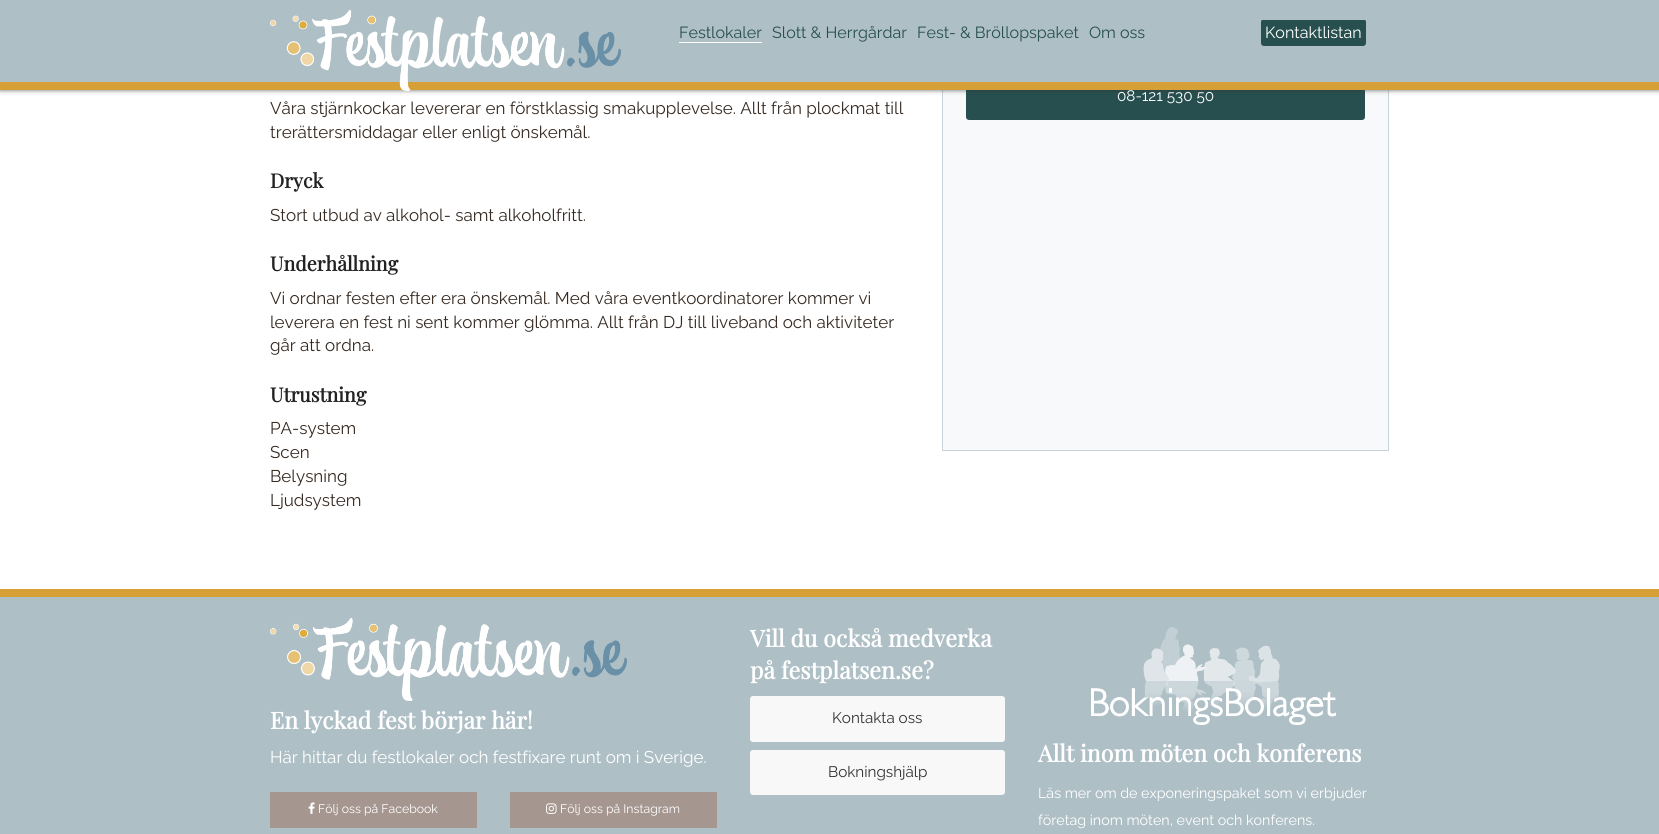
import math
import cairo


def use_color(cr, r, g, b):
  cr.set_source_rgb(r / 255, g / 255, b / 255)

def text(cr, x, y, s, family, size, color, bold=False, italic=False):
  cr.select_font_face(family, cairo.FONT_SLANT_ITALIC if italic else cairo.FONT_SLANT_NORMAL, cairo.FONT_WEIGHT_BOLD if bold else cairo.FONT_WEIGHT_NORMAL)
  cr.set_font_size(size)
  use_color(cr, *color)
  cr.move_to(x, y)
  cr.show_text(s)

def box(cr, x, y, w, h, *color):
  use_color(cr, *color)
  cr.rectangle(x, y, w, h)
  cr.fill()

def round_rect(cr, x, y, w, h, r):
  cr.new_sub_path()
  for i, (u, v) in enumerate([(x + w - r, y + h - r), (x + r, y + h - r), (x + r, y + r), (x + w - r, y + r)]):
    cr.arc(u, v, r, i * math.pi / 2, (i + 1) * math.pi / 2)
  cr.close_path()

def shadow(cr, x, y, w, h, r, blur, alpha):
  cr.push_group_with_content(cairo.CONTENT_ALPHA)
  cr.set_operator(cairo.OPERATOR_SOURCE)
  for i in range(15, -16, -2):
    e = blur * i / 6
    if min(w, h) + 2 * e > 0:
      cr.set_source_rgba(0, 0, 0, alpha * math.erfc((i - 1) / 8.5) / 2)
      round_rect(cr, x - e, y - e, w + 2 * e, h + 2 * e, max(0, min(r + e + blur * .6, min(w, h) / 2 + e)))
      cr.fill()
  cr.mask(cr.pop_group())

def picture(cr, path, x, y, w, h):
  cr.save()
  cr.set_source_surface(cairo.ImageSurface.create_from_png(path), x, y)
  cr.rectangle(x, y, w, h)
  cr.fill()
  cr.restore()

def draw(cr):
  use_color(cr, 255, 255, 255)
  cr.paint()
  box(cr, 943, 90, 445, 360, 248, 249, 250)
  cr.rectangle(942.5, -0.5, 446, 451)
  use_color(cr, 199, 211, 216)
  cr.set_line_width(1)
  cr.stroke()
  use_color(cr, 39, 79, 79)
  round_rect(cr, 966, 74, 399, 46, 3)
  cr.fill()
  use_color(cr, 50, 50, 50)
  shadow(cr, 0, 0, 1659, 90, 0, 2.5, 0.75)
  box(cr, 0, 0, 1659, 82, 174, 191, 198)
  box(cr, 0, 82, 1659, 8, 214, 160, 55)
  picture(cr, "img_01.png", 270, 10, 351, 81)
  box(cr, 679, 42, 83, 1, 255, 255, 255)
  cr.save()
  cr.rectangle(674, 20, 715, 26)
  cr.clip()
  use_color(cr, 39, 79, 79)
  round_rect(cr, 1261, 19, 105, 27, 3)
  cr.fill()
  cr.restore()
  box(cr, 0, 597, 1659, 237, 174, 191, 198)
  box(cr, 0, 589, 1659, 8, 214, 160, 55)
  picture(cr, "img_02.png", 270, 618, 357, 83)
  box(cr, 270, 792, 207, 36, 165, 150, 143)
  picture(cr, "img_03.png", 308, 802, 7, 12)
  box(cr, 510, 792, 207, 36, 165, 150, 143)
  picture(cr, "img_04.png", 546, 803, 11, 11)
  use_color(cr, 248, 248, 248)
  round_rect(cr, 750, 696, 255, 46, 3)
  cr.fill()
  round_rect(cr, 750, 750, 255, 45, 3)
  cr.fill()
  picture(cr, "img_05.png", 1091, 627, 245, 98)
  text(cr, 679, 38, "Festlokaler", "Raleway Thin", 16.1, (39, 79, 79))
  text(cr, 772, 38, "Slott & Herrgårdar", "Raleway Thin", 16.1, (39, 79, 79))
  text(cr, 917, 38, "Fest- & Bröllopspaket", "Raleway Thin", 16.1, (39, 79, 79))
  text(cr, 1089, 38, "Om oss", "Raleway Thin", 16.1, (39, 79, 79))
  text(cr, 1265, 38, "Kontaktlistan", "Raleway Thin", 16.1, (255, 255, 255))
  text(cr, 1117, 101, "08-121 530 50", "Raleway Thin", 15.25, (255, 255, 255))
  text(cr, 270, 114, "Våra stjärnkockar levererar en förstklassig smakupplevelse. Allt från plockmat till", "Raleway Thin", 17, (54, 43, 35))
  text(cr, 270, 138, "trerättersmiddagar eller enligt önskemål.", "Raleway Thin", 17, (54, 43, 35))
  text(cr, 270, 188, "Dryck", "Playfair Display", 19.75, (34, 34, 34), bold=True)
  text(cr, 270, 221, "Stort utbud av alkohol- samt alkoholfritt.", "Raleway Thin", 17, (54, 43, 35))
  text(cr, 270, 271, "Underhållning", "Playfair Display", 19.75, (34, 34, 34), bold=True)
  text(cr, 270, 304, "Vi ordnar festen efter era önskemål. Med våra eventkoordinatorer kommer vi", "Raleway Thin", 17, (54, 43, 35))
  text(cr, 270, 328, "leverera en fest ni sent kommer glömma. Allt från DJ till liveband och aktiviteter", "Raleway Thin", 17, (54, 43, 35))
  text(cr, 270, 351, "går att ordna.", "Raleway Thin", 17, (54, 43, 35))
  text(cr, 270, 402, "Utrustning", "Playfair Display", 19.75, (34, 34, 34), bold=True)
  text(cr, 270, 434, "PA-system", "Raleway Thin", 17, (54, 43, 35))
  text(cr, 270, 458, "Scen", "Raleway Thin", 17, (54, 43, 35))
  text(cr, 270, 482, "Belysning", "Raleway Thin", 17, (54, 43, 35))
  text(cr, 270, 506, "Ljudsystem", "Raleway Thin", 17, (54, 43, 35))
  text(cr, 270, 729, "En lyckad fest börjar här!", "Playfair Display", 23.25, (255, 255, 255), bold=True)
  text(cr, 270, 763, "Här hittar du festlokaler och festfixare runt om i Sverige.", "Raleway Thin", 17, (255, 255, 255))
  text(cr, 318, 813, "Följ oss på Facebook", "Raleway Thin", 12.25, (255, 255, 255))
  text(cr, 560, 813, "Följ oss på Instagram", "Raleway Thin", 12.25, (255, 255, 255))
  text(cr, 750, 647, "Vill du också medverka", "Playfair Display", 23.25, (255, 255, 255), bold=True)
  text(cr, 750, 679, "på festplatsen.se?", "Playfair Display", 23.25, (255, 255, 255), bold=True)
  text(cr, 832, 723, "Kontakta oss", "Raleway Thin", 15.25, (51, 51, 51))
  text(cr, 828, 777, "Bokningshjälp", "Raleway Thin", 15.25, (51, 51, 51))
  text(cr, 1038, 762, "Allt inom möten och konferens", "Playfair Display", 23.25, (255, 255, 255), bold=True)
  text(cr, 1038, 798, "Läs mer om de exponeringspaket som vi erbjuder", "Raleway Thin", 14.3, (255, 255, 255))
  text(cr, 1038, 825, "företag inom möten, event och konferens.", "Raleway Thin", 14.3, (255, 255, 255))


surface = cairo.ImageSurface(cairo.FORMAT_RGB24, 1659, 834)
cr = cairo.Context(surface)
options = cairo.FontOptions()
options.set_hint_metrics(cairo.HINT_METRICS_OFF)
options.set_hint_style(cairo.HINT_STYLE_NONE)
cr.set_font_options(options)
cr.set_miter_limit(4)
draw(cr)
surface.write_to_png("out.png")
